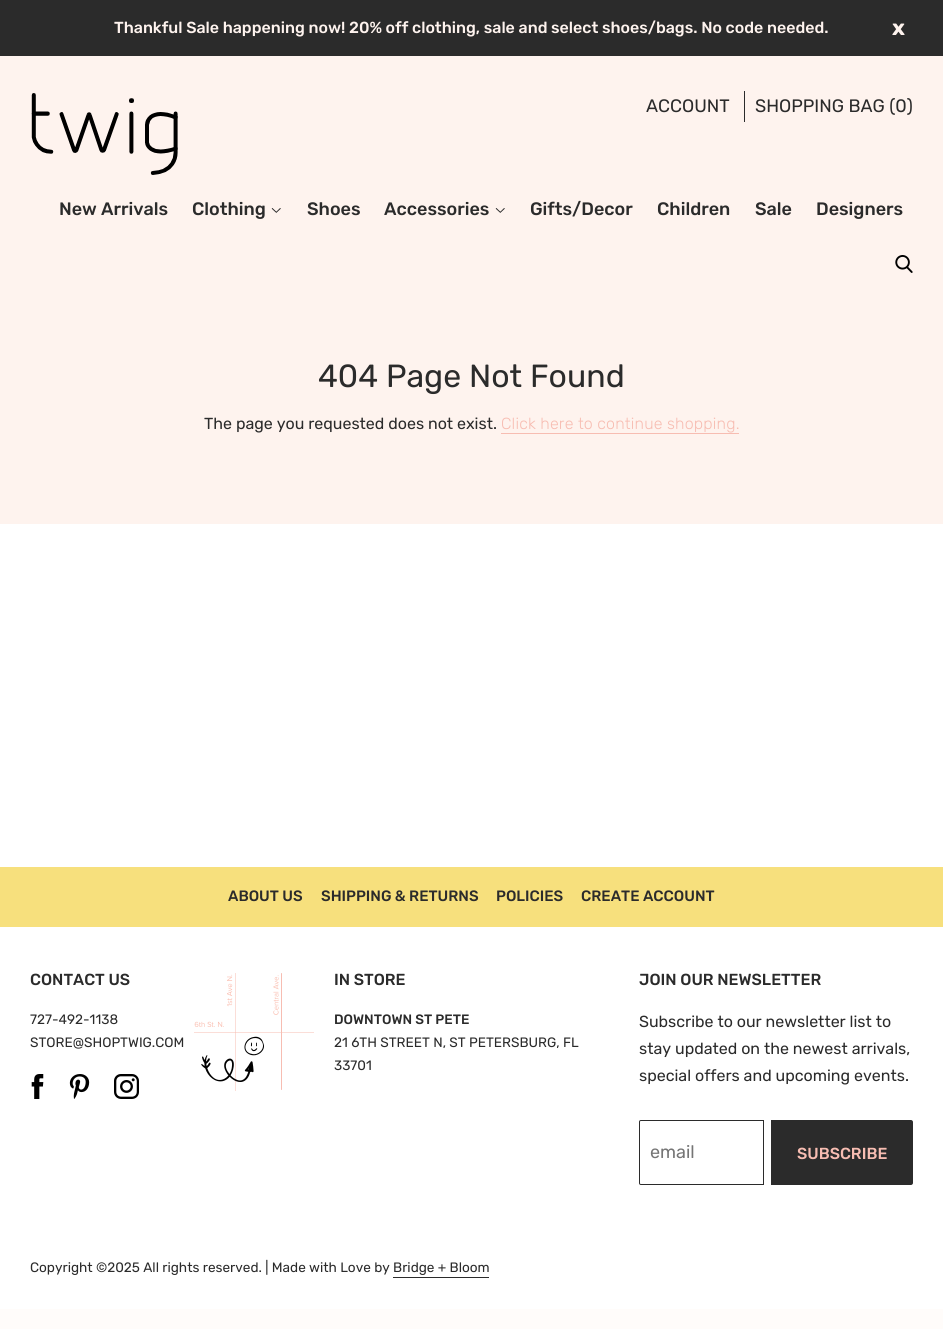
import math
import cairo


def use_color(cr, r, g, b):
  cr.set_source_rgb(r / 255, g / 255, b / 255)

def text(cr, x, y, s, family, size, color, bold=False, italic=False):
  cr.select_font_face(family, cairo.FONT_SLANT_ITALIC if italic else cairo.FONT_SLANT_NORMAL, cairo.FONT_WEIGHT_BOLD if bold else cairo.FONT_WEIGHT_NORMAL)
  cr.set_font_size(size)
  use_color(cr, *color)
  cr.move_to(x, y)
  cr.show_text(s)

def spaced_text(cr, x, y, s, letter, word):
  cr.move_to(x, y)
  for ch in s:
    cr.show_text(ch)
    cr.rel_move_to(letter + word * (ch == ' '), 0)

def box(cr, x, y, w, h, *color):
  use_color(cr, *color)
  cr.rectangle(x, y, w, h)
  cr.fill()

def picture(cr, path, x, y, w, h):
  cr.save()
  cr.set_source_surface(cairo.ImageSurface.create_from_png(path), x, y)
  cr.rectangle(x, y, w, h)
  cr.fill()
  cr.restore()

def draw(cr):
  use_color(cr, 255, 252, 250)
  cr.paint()
  box(cr, 0, 56, 943, 468, 254, 243, 238)
  box(cr, 0, 524, 943, 785, 255, 255, 255)
  box(cr, 0, 0, 943, 56, 43, 43, 43)
  picture(cr, "img_01.png", 31, 93, 147, 82)
  box(cr, 744, 91, 1, 31, 43, 43, 43)
  picture(cr, "img_02.png", 271, 208, 10, 5)
  picture(cr, "img_02.png", 495, 208, 10, 5)
  picture(cr, "img_03.png", 895, 255, 18, 18)
  box(cr, 501, 433, 238, 1, 247, 189, 178)
  box(cr, 0, 867, 943, 60, 247, 224, 125)
  picture(cr, "img_04.png", 194, 973, 120, 118)
  picture(cr, "img_05.png", 31, 1074, 13, 25)
  picture(cr, "img_06.png", 69, 1074, 21, 25)
  picture(cr, "img_07.png", 114, 1074, 25, 25)
  cr.new_path()
  cr.move_to(641, 1120.5)
  cr.line_to(763.5, 1120.5)
  cr.line_to(763.5, 1184.5)
  cr.line_to(641, 1184.5)
  cr.curve_to(640, 1184.5, 639.5, 1184, 639.5, 1183)
  cr.line_to(639.5, 1122)
  cr.curve_to(639.5, 1121, 640, 1120.5, 641, 1120.5)
  cr.close_path()
  use_color(cr, 43, 43, 43)
  cr.set_line_width(1)
  cr.stroke()
  cr.new_path()
  cr.move_to(771, 1120)
  cr.line_to(911, 1120)
  cr.curve_to(912, 1120, 913, 1121, 913, 1122)
  cr.line_to(913, 1183)
  cr.curve_to(913, 1184, 912, 1185, 911, 1185)
  cr.line_to(771, 1185)
  cr.close_path()
  cr.fill()
  box(cr, 393, 1277, 96, 1, 43, 43, 43)
  text(cr, 114, 33, "Thankful Sale happening now! 20% off clothing, sale and select shoes/bags. No code needed.", "Rubik Medium", 16, (254, 243, 238))
  text(cr, 892, 35, "x", "Rubik", 22, (254, 243, 238), bold=True)
  text(cr, 646, 112, "ACCOUNT", "Rubik", 18, (43, 43, 43))
  text(cr, 755, 112, "SHOPPING BAG (0)", "Rubik", 18, (43, 43, 43))
  text(cr, 59, 215, "New Arrivals", "Rubik Medium", 18, (43, 43, 43))
  text(cr, 192, 215, "Clothing", "Rubik Medium", 18, (43, 43, 43))
  text(cr, 307, 215, "Shoes", "Rubik Medium", 18, (43, 43, 43))
  text(cr, 384, 215, "Accessories", "Rubik Medium", 18, (43, 43, 43))
  text(cr, 530, 215, "Gifts/Decor", "Rubik Medium", 18, (43, 43, 43))
  text(cr, 657, 215, "Children", "Rubik Medium", 18, (43, 43, 43))
  text(cr, 755, 215, "Sale", "Rubik Medium", 18, (43, 43, 43))
  text(cr, 816, 215, "Designers", "Rubik Medium", 18, (43, 43, 43))
  text(cr, 318, 387, "404 Page Not Found", "Rubik", 32, (43, 43, 43))
  text(cr, 204, 429, "The page you requested does not exist.", "Rubik", 16, (43, 43, 43))
  cr.select_font_face("Rubik Light")
  use_color(cr, 247, 189, 178)
  spaced_text(cr, 501, 429, "Click here to continue shopping.", 0.2, 0)
  text(cr, 228, 901, "ABOUT US", "Rubik Medium", 15, (43, 43, 43))
  text(cr, 321, 901, "SHIPPING & RETURNS", "Rubik Medium", 15, (43, 43, 43))
  text(cr, 496, 901, "POLICIES", "Rubik Medium", 15, (43, 43, 43))
  text(cr, 581, 901, "CREATE ACCOUNT", "Rubik Medium", 15, (43, 43, 43))
  text(cr, 30, 985, "CONTACT US", "Rubik Medium", 16, (43, 43, 43))
  text(cr, 30, 1024, "727-492-1138", "Rubik", 13.6, (43, 43, 43))
  text(cr, 30, 1047, "STORE@SHOPTWIG.COM", "Rubik", 13.6, (43, 43, 43))
  text(cr, 334, 985, "IN STORE", "Rubik Medium", 16, (43, 43, 43))
  text(cr, 334, 1024, "DOWNTOWN ST PETE", "Rubik Medium", 13.6, (43, 43, 43))
  text(cr, 334, 1047, "21 6TH STREET N, ST PETERSBURG, FL", "Rubik", 13.6, (43, 43, 43))
  text(cr, 334, 1070, "33701", "Rubik", 13.6, (43, 43, 43))
  text(cr, 639, 985, "JOIN OUR NEWSLETTER", "Rubik Medium", 16, (43, 43, 43))
  text(cr, 639, 1027, "Subscribe to our newsletter list to", "Rubik", 16, (43, 43, 43))
  text(cr, 639, 1054, "stay updated on the newest arrivals,", "Rubik", 16, (43, 43, 43))
  text(cr, 639, 1081, "special offers and upcoming events.", "Rubik", 16, (43, 43, 43))
  text(cr, 650, 1158, "email", "Rubik", 18, (117, 117, 117))
  text(cr, 797, 1159, "SUBSCRIBE", "Rubik Medium", 16, (247, 189, 178))
  text(cr, 30, 1272, "Copyright ©2025 All rights reserved. | Made with Love by Bridge + Bloom", "Rubik", 13.6, (43, 43, 43))


surface = cairo.ImageSurface(cairo.FORMAT_RGB24, 943, 1329)
cr = cairo.Context(surface)
options = cairo.FontOptions()
options.set_hint_metrics(cairo.HINT_METRICS_OFF)
options.set_hint_style(cairo.HINT_STYLE_NONE)
cr.set_font_options(options)
cr.set_miter_limit(4)
draw(cr)
surface.write_to_png("out.png")
